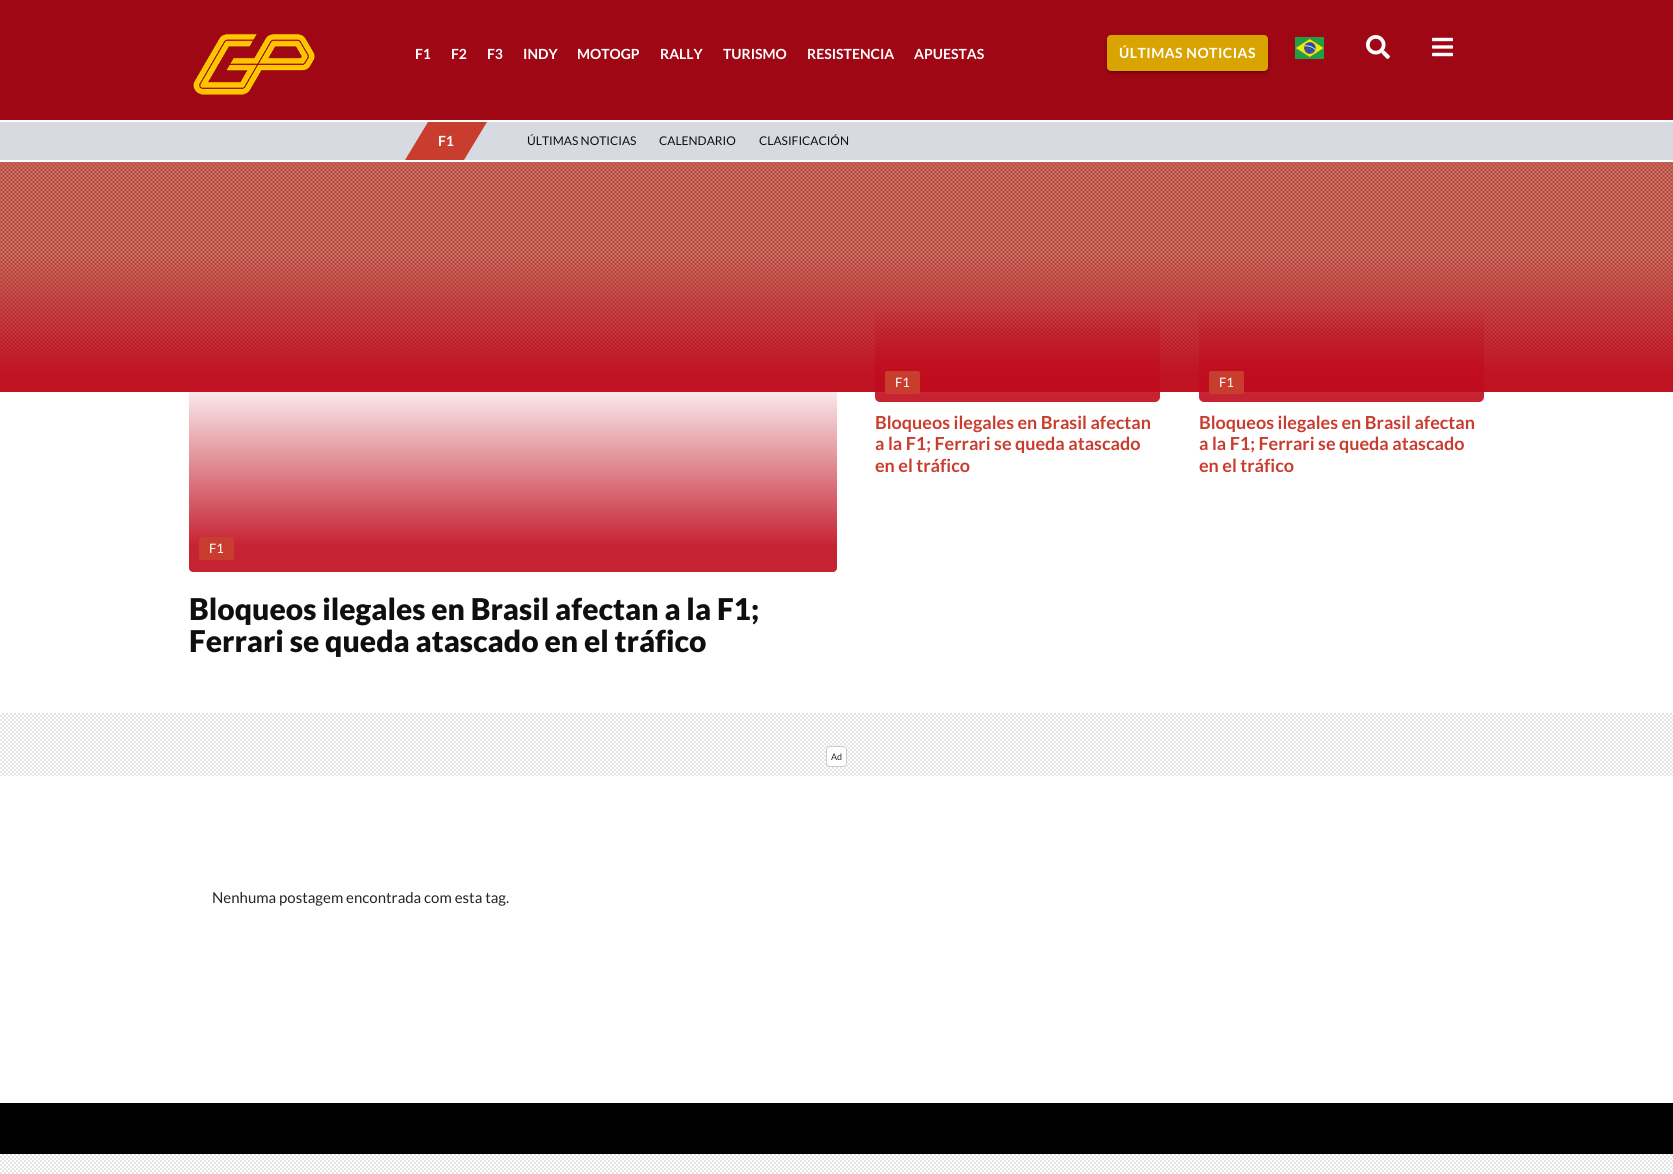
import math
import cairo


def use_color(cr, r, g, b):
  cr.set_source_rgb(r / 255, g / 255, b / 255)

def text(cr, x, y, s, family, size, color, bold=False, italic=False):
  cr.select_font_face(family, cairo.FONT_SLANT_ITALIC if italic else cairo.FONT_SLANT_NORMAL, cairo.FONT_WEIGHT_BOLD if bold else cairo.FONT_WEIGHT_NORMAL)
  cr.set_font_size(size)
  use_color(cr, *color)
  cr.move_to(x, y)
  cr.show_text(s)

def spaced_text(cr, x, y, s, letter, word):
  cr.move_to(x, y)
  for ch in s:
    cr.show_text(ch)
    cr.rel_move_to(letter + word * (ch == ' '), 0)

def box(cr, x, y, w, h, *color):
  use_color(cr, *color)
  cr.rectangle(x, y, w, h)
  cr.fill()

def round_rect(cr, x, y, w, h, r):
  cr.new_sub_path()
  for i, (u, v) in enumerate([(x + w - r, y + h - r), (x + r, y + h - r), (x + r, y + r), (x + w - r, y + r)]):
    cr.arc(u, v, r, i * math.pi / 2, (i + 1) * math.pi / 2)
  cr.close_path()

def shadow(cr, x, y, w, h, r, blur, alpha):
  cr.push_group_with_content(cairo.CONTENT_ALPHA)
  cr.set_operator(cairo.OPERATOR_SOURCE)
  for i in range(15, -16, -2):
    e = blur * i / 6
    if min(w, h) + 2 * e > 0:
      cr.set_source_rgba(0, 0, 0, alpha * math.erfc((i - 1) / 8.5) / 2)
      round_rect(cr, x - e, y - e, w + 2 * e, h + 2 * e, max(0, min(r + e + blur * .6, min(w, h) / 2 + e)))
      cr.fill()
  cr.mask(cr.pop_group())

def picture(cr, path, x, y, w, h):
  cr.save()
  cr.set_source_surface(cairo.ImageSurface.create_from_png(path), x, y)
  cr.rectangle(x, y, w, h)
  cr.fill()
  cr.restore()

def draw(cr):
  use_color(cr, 255, 255, 255)
  cr.paint()
  box(cr, 0, 0, 1673, 120, 160, 7, 21)
  picture(cr, "img_01.png", 193, 33, 122, 62)
  use_color(cr, 0, 0, 0)
  shadow(cr, 1107, 36, 161, 36, 4, 2.5, 0.2)
  shadow(cr, 1109, 40, 157, 32, 2, 0.5, 0.12)
  shadow(cr, 1107, 37, 161, 36, 4, 1, 0.14)
  use_color(cr, 218, 164, 0)
  round_rect(cr, 1107, 35, 161, 36, 4)
  cr.fill()
  picture(cr, "img_02.png", 1295, 37, 29, 22)
  picture(cr, "img_03.png", 1366, 35, 24, 24)
  picture(cr, "img_04.png", 1432, 37, 21, 20)
  box(cr, 0, 122, 1673, 38, 215, 219, 225)
  use_color(cr, 201, 61, 46)
  cr.new_path()
  cr.move_to(428, 160)
  cr.line_to(405, 160)
  cr.line_to(428, 122)
  cr.close_path()
  cr.fill()
  box(cr, 428, 122, 36, 38, 201, 61, 46)
  cr.new_path()
  cr.move_to(464, 122)
  cr.line_to(487, 122)
  cr.line_to(464, 160)
  cr.close_path()
  cr.fill()
  box(cr, 0, 162, 1673, 230, 201, 61, 46)
  picture(cr, "img_05.png", 0, 162, 1673, 230)
  gradient = cairo.LinearGradient(1018, 242, 1018, 402)
  gradient.add_color_stop_rgba(0.4, 0.753, 0.043, 0.114, 0)
  gradient.add_color_stop_rgba(0.95, 0.753, 0.043, 0.114, 0.9)
  cr.set_source(gradient)
  round_rect(cr, 875, 242, 285, 160, 5)
  cr.fill()
  use_color(cr, 201, 61, 46)
  round_rect(cr, 885, 371, 35, 23, 2)
  cr.fill()
  gradient = cairo.LinearGradient(1342, 242, 1342, 402)
  gradient.add_color_stop_rgba(0.4, 0.753, 0.043, 0.114, 0)
  gradient.add_color_stop_rgba(0.95, 0.753, 0.043, 0.114, 0.9)
  cr.set_source(gradient)
  round_rect(cr, 1199, 242, 285, 160, 5)
  cr.fill()
  use_color(cr, 201, 61, 46)
  round_rect(cr, 1209, 371, 35, 23, 2)
  cr.fill()
  gradient = cairo.LinearGradient(513, 242, 513, 572)
  gradient.add_color_stop_rgba(0.4, 0.753, 0.043, 0.114, 0)
  gradient.add_color_stop_rgba(0.92, 0.753, 0.043, 0.114, 0.9)
  cr.set_source(gradient)
  round_rect(cr, 189, 242, 648, 330, 4)
  cr.fill()
  use_color(cr, 201, 61, 46)
  round_rect(cr, 199, 537, 35, 23, 2)
  cr.fill()
  picture(cr, "img_06.png", 0, 713, 1673, 63)
  use_color(cr, 255, 255, 255)
  round_rect(cr, 826.5, 746.5, 20, 20, 3.5)
  cr.fill_preserve()
  use_color(cr, 204, 204, 204)
  cr.set_line_width(1)
  cr.stroke()
  box(cr, 0, 1103, 1673, 51, 0, 0, 0)
  picture(cr, "img_07.png", 0, 1154, 1673, 20)
  text(cr, 415, 59, "F1", "Lato", 14, (255, 255, 255), bold=True)
  text(cr, 451, 59, "F2", "Lato", 14, (255, 255, 255), bold=True)
  text(cr, 487, 59, "F3", "Lato", 14, (255, 255, 255), bold=True)
  text(cr, 523, 59, "INDY", "Lato", 14, (255, 255, 255), bold=True)
  text(cr, 577, 59, "MOTOGP", "Lato", 14, (255, 255, 255), bold=True)
  text(cr, 660, 59, "RALLY", "Lato", 14, (255, 255, 255), bold=True)
  text(cr, 723, 59, "TURISMO", "Lato", 14, (255, 255, 255), bold=True)
  text(cr, 807, 59, "RESISTENCIA", "Lato", 14, (255, 255, 255), bold=True)
  text(cr, 914, 59, "APUESTAS", "Lato", 14, (255, 255, 255), bold=True)
  spaced_text(cr, 1119, 58, "ÚLTIMAS NOTICIAS", 0.5, 0)
  text(cr, 438, 146, "F1", "Lato", 14, (255, 255, 255), bold=True)
  text(cr, 527, 145, "ÚLTIMAS NOTICIAS", "Lato", 12, (15, 15, 15))
  text(cr, 659, 145, "CALENDARIO", "Lato", 12, (15, 15, 15))
  text(cr, 759, 145, "CLASIFICACIÓN", "Lato", 12, (15, 15, 15))
  text(cr, 895, 387, "F1", "Lato", 13, (255, 255, 255))
  text(cr, 875, 429, "Bloqueos ilegales en Brasil afectan", "Lato", 18, (201, 61, 46), bold=True)
  text(cr, 875, 450, "a la F1; Ferrari se queda atascado", "Lato", 18, (201, 61, 46), bold=True)
  text(cr, 875, 472, "en el tráfico", "Lato", 18, (201, 61, 46), bold=True)
  text(cr, 1219, 387, "F1", "Lato", 13, (255, 255, 255))
  text(cr, 1199, 429, "Bloqueos ilegales en Brasil afectan", "Lato", 18, (201, 61, 46), bold=True)
  text(cr, 1199, 450, "a la F1; Ferrari se queda atascado", "Lato", 18, (201, 61, 46), bold=True)
  text(cr, 1199, 472, "en el tráfico", "Lato", 18, (201, 61, 46), bold=True)
  text(cr, 209, 553, "F1", "Lato", 13, (255, 255, 255))
  text(cr, 189, 620, "Bloqueos ilegales en Brasil afectan a la F1;", "Lato Black", 30, (15, 15, 15))
  text(cr, 189, 652, "Ferrari se queda atascado en el tráfico", "Lato Black", 30, (15, 15, 15))
  text(cr, 831, 760, "Ad", "Lato", 9, (33, 37, 41))
  text(cr, 212, 903, "Nenhuma postagem encontrada com esta tag.", "Lato", 15, (33, 37, 41))


surface = cairo.ImageSurface(cairo.FORMAT_RGB24, 1673, 1174)
cr = cairo.Context(surface)
options = cairo.FontOptions()
options.set_hint_metrics(cairo.HINT_METRICS_OFF)
options.set_hint_style(cairo.HINT_STYLE_NONE)
cr.set_font_options(options)
cr.set_miter_limit(4)
draw(cr)
surface.write_to_png("out.png")
